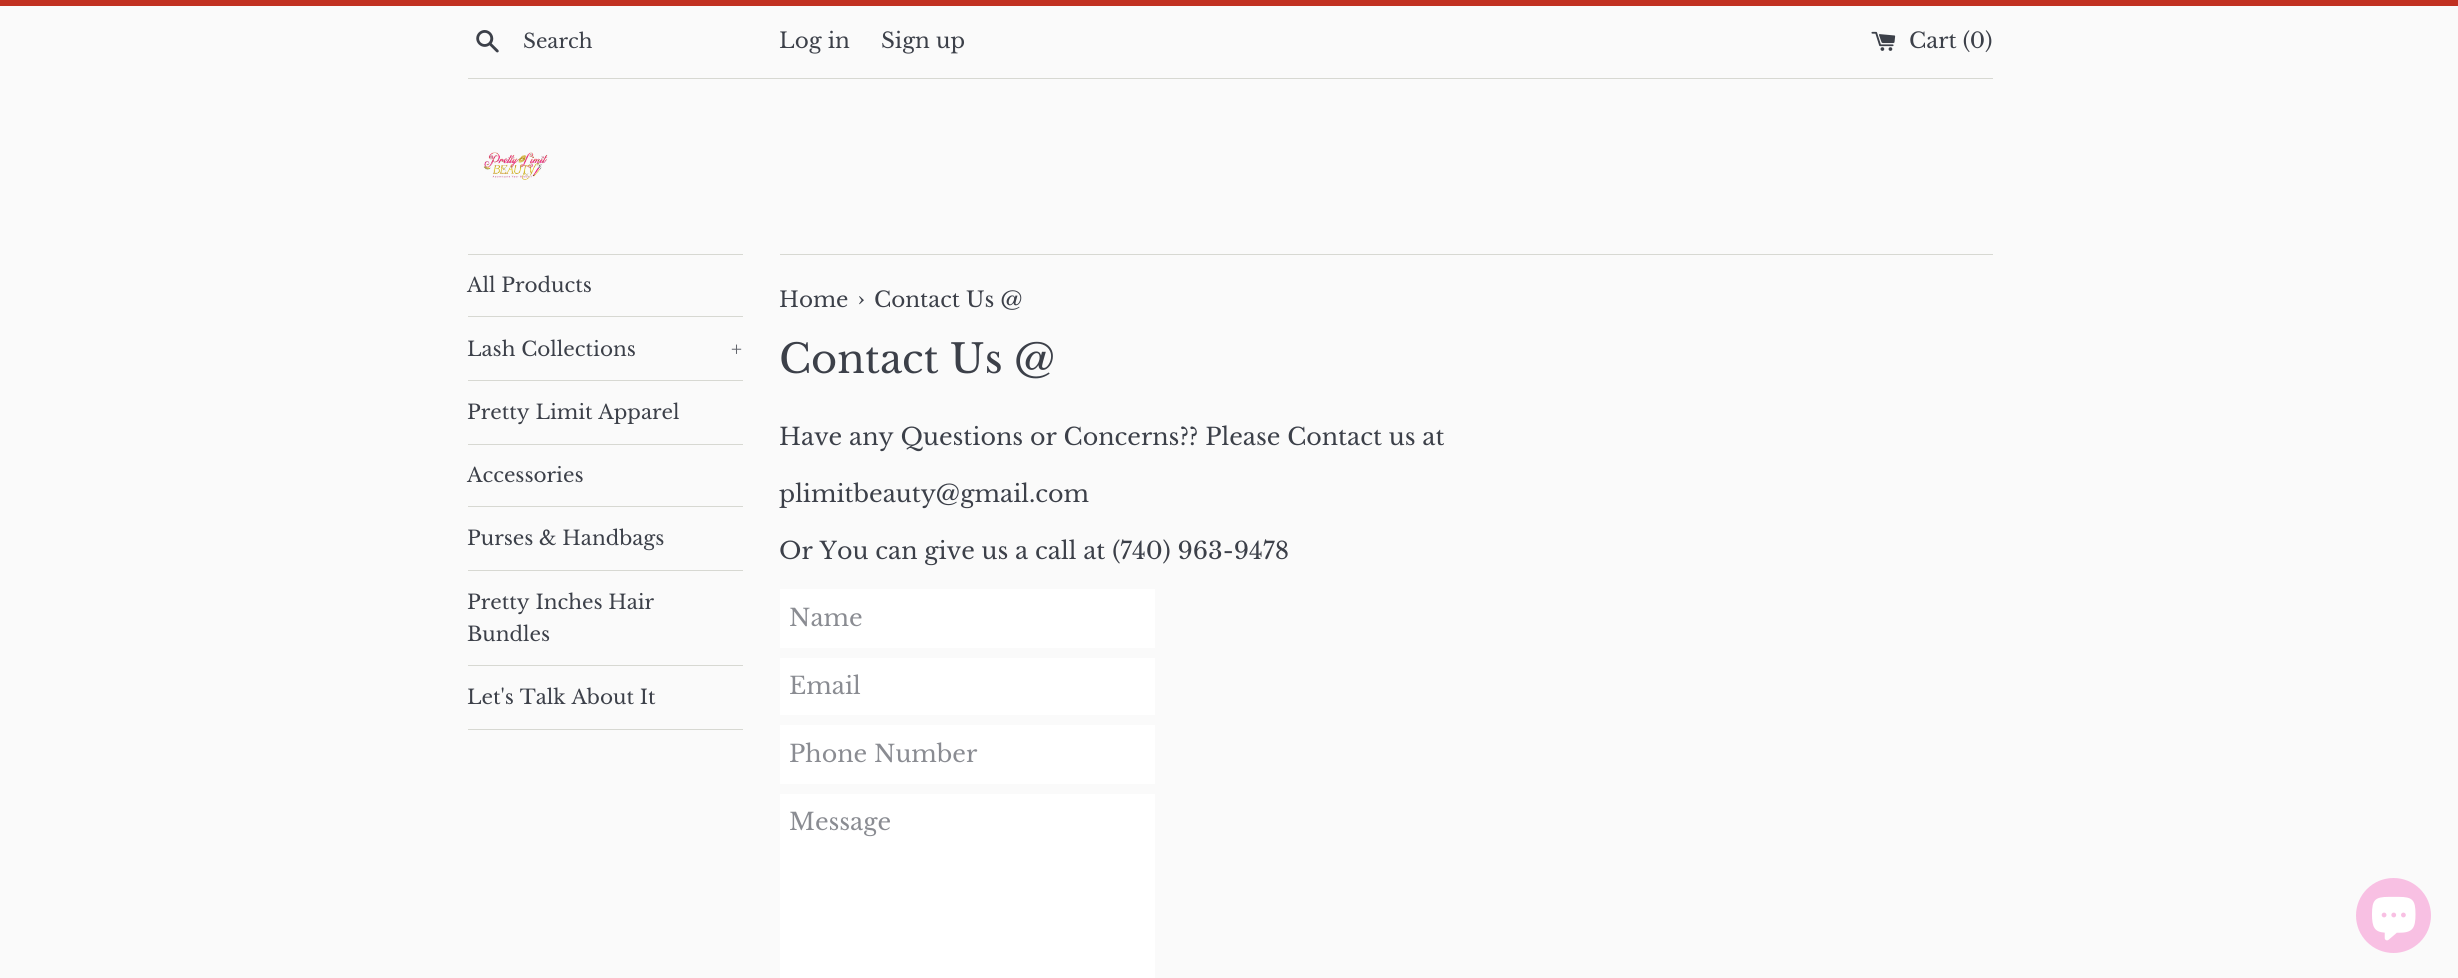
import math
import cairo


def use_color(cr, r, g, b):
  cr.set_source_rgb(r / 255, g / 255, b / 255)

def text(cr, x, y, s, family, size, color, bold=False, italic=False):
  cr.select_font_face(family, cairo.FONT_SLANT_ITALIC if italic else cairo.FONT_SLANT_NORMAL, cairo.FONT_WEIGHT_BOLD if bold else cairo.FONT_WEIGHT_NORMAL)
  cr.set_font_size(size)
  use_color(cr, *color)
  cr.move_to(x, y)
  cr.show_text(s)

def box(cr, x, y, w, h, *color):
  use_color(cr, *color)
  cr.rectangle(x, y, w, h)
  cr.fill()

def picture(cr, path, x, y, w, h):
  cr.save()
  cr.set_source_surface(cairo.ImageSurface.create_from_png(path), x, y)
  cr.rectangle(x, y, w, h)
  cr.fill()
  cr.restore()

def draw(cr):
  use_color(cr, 250, 250, 250)
  cr.paint()
  box(cr, 0, 0, 2458, 6, 193, 49, 33)
  picture(cr, "img_01.png", 476, 30, 23, 23)
  picture(cr, "img_02.png", 1871, 31, 25, 20)
  box(cr, 468, 78, 1525, 1, 215, 216, 210)
  picture(cr, "img_03.png", 483, 152, 65, 28)
  box(cr, 468, 254, 275, 1, 215, 216, 210)
  box(cr, 468, 316, 275, 1, 215, 216, 210)
  box(cr, 468, 380, 275, 1, 215, 216, 210)
  box(cr, 468, 444, 275, 1, 215, 216, 210)
  box(cr, 468, 506, 275, 1, 215, 216, 210)
  box(cr, 468, 570, 275, 1, 215, 216, 210)
  box(cr, 468, 665, 275, 1, 215, 216, 210)
  box(cr, 468, 729, 275, 1, 215, 216, 210)
  box(cr, 780, 254, 1213, 1, 215, 216, 210)
  box(cr, 780, 589, 375, 59, 255, 255, 255)
  box(cr, 780, 658, 375, 57, 255, 255, 255)
  box(cr, 780, 725, 375, 59, 255, 255, 255)
  box(cr, 780, 794, 375, 184, 255, 255, 255)
  use_color(cr, 248, 192, 227)
  cr.arc(2393.5, 915.5, 37.5, 0, 2 * math.pi)
  cr.fill()
  picture(cr, "img_04.png", 2372, 896, 44, 45)
  text(cr, 523, 48, "Search", "Libre Baskerville", 20, (60, 64, 73))
  text(cr, 779, 48, "Log in", "Libre Baskerville", 21.5, (60, 64, 73))
  text(cr, 881, 48, "Sign up", "Libre Baskerville", 21.5, (60, 64, 73))
  text(cr, 1909, 48, "Cart (0)", "Libre Baskerville", 21.5, (60, 64, 73))
  text(cr, 467, 292, "All Products", "Libre Baskerville", 20, (60, 64, 73))
  text(cr, 467, 356, "Lash Collections", "Libre Baskerville", 20, (60, 64, 73))
  text(cr, 731, 356, "+", "Libre Baskerville", 20, (98, 101, 108))
  text(cr, 467, 419, "Pretty Limit Apparel", "Libre Baskerville", 20, (60, 64, 73))
  text(cr, 467, 482, "Accessories", "Libre Baskerville", 20, (60, 64, 73))
  text(cr, 467, 545, "Purses & Handbags", "Libre Baskerville", 20, (60, 64, 73))
  text(cr, 467, 609, "Pretty Inches Hair", "Libre Baskerville", 20, (60, 64, 73))
  text(cr, 467, 641, "Bundles", "Libre Baskerville", 20, (60, 64, 73))
  text(cr, 467, 704, "Let's Talk About It", "Libre Baskerville", 20, (60, 64, 73))
  text(cr, 779, 307, "Home", "Libre Baskerville", 21.5, (60, 64, 73))
  text(cr, 857, 307, "›", "Libre Baskerville", 26, (60, 64, 73))
  text(cr, 874, 307, "Contact Us @", "Libre Baskerville", 21.5, (60, 64, 73))
  text(cr, 779, 373, "Contact Us @", "Libre Baskerville", 40, (60, 64, 73))
  text(cr, 779, 445, "Have any Questions or Concerns?? Please Contact us at", "Libre Baskerville", 23.75, (60, 64, 73))
  text(cr, 779, 502, "plimitbeauty@gmail.com", "Libre Baskerville", 23.75, (60, 64, 73))
  text(cr, 779, 559, "Or You can give us a call at (740) 963-9478", "Libre Baskerville", 23.75, (60, 64, 73))
  text(cr, 789, 626, "Name", "Libre Baskerville", 23.75, (138, 140, 146))
  text(cr, 789, 694, "Email", "Libre Baskerville", 23.75, (138, 140, 146))
  text(cr, 789, 762, "Phone Number", "Libre Baskerville", 23.75, (138, 140, 146))
  text(cr, 789, 830, "Message", "Libre Baskerville", 23.75, (138, 140, 146))


surface = cairo.ImageSurface(cairo.FORMAT_RGB24, 2458, 978)
cr = cairo.Context(surface)
options = cairo.FontOptions()
options.set_hint_metrics(cairo.HINT_METRICS_OFF)
options.set_hint_style(cairo.HINT_STYLE_NONE)
cr.set_font_options(options)
cr.set_miter_limit(4)
draw(cr)
surface.write_to_png("out.png")
